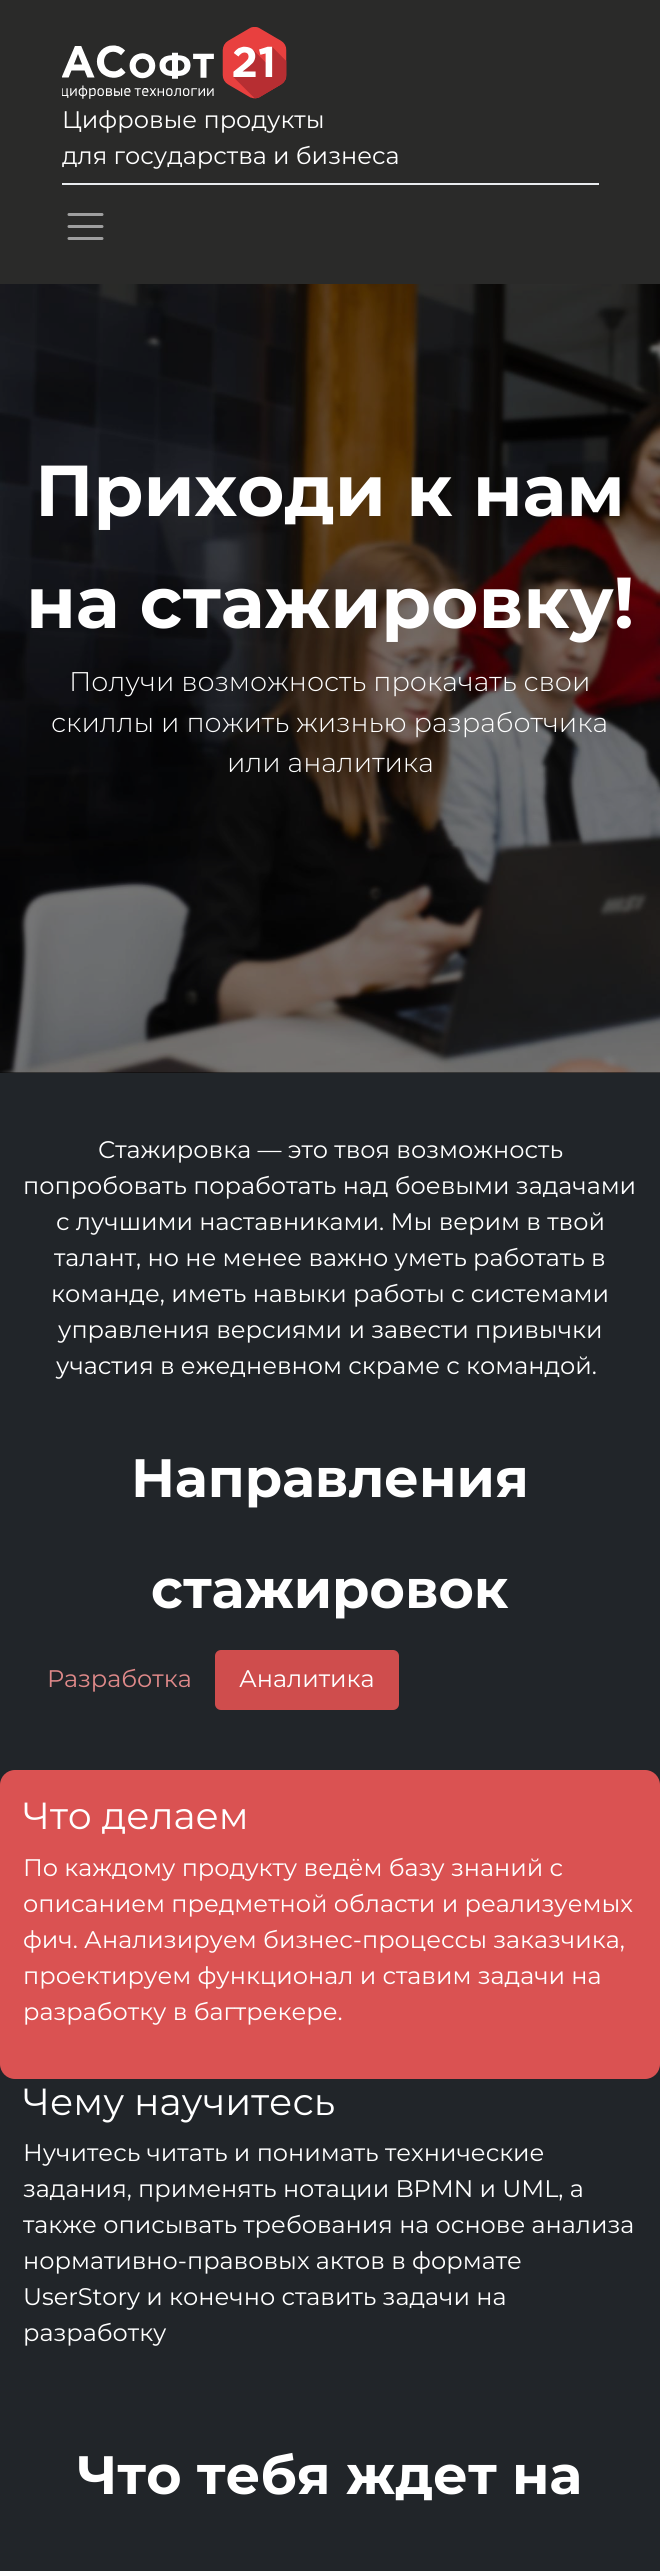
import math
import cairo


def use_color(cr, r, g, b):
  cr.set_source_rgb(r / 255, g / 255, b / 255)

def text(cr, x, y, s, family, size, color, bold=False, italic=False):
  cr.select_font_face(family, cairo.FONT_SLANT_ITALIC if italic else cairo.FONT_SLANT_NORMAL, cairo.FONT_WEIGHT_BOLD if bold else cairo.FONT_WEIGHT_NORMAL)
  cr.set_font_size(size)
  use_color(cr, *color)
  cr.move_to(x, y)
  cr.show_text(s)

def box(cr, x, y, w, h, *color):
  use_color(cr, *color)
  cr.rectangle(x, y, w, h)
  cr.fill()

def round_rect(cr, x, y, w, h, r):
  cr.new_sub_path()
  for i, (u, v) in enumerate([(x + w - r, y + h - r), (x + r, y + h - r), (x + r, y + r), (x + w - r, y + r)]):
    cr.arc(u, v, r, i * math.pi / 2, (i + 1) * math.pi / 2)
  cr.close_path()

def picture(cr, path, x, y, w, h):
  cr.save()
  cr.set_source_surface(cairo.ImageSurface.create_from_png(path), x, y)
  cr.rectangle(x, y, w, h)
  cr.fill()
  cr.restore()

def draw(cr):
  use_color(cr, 33, 37, 41)
  cr.paint()
  box(cr, 0, 0, 660, 284, 42, 42, 41)
  picture(cr, "img_01.png", 62, 27, 225, 72)
  box(cr, 62, 183, 537, 2, 233, 236, 239)
  cr.new_path()
  cr.move_to(69, 214.5)
  cr.line_to(102, 214.5)
  cr.move_to(69, 226.5)
  cr.line_to(102, 226.5)
  cr.move_to(69, 238.5)
  cr.line_to(102, 238.5)
  use_color(cr, 159, 159, 159)
  cr.set_line_width(3)
  cr.set_line_cap(cairo.LINE_CAP_ROUND)
  cr.stroke()
  box(cr, 0, 1072, 660, 1, 4, 5, 5)
  picture(cr, "img_02.png", 0, 284, 660, 789)
  use_color(cr, 207, 77, 77)
  round_rect(cr, 215, 1650, 184, 60, 6)
  cr.fill()
  use_color(cr, 218, 82, 82)
  round_rect(cr, 0, 1770, 660, 309, 15)
  cr.fill()
  text(cr, 62, 128, "Цифровые продукты", "Montserrat", 24, (255, 255, 255))
  text(cr, 62, 164, "для государства и бизнеса", "Montserrat", 24, (255, 255, 255))
  text(cr, 35, 516, "Приходи к нам", "Montserrat", 72, (255, 255, 255), bold=True)
  text(cr, 26, 628, "на стажировку!", "Montserrat", 72, (255, 255, 255), bold=True)
  text(cr, 69, 691, "Получи возможность прокачать свои", "Montserrat Light", 27, (255, 255, 255))
  text(cr, 51, 732, "скиллы и пожить жизнью разработчика", "Montserrat Light", 27, (255, 255, 255))
  text(cr, 227, 772, "или аналитика", "Montserrat Light", 27, (255, 255, 255))
  text(cr, 98, 1158, "Стажировка — это твоя возможность", "Montserrat", 24, (255, 255, 255))
  text(cr, 23, 1194, "попробовать поработать над боевыми задачами", "Montserrat", 24, (255, 255, 255))
  text(cr, 56, 1230, "с лучшими наставниками. Мы верим в твой", "Montserrat", 24, (255, 255, 255))
  text(cr, 54, 1266, "талант, но не менее важно уметь работать в", "Montserrat", 24, (255, 255, 255))
  text(cr, 51, 1302, "команде, иметь навыки работы с системами", "Montserrat", 24, (255, 255, 255))
  text(cr, 58, 1338, "управления версиями и завести привычки", "Montserrat", 24, (255, 255, 255))
  text(cr, 56, 1374, "участия в ежедневном скраме с командой.", "Montserrat", 24, (255, 255, 255))
  text(cr, 131, 1497, "Направления", "Montserrat", 54, (255, 255, 255), bold=True)
  text(cr, 151, 1608, "стажировок", "Montserrat", 54, (255, 255, 255), bold=True)
  text(cr, 47, 1687, "Разработка", "Montserrat", 24, (223, 137, 137))
  text(cr, 239, 1687, "Аналитика", "Montserrat", 24, (255, 255, 255))
  text(cr, 23, 1829, "Что делаем", "Montserrat", 37.75, (255, 255, 255))
  text(cr, 23, 1876, "По каждому продукту ведём базу знаний с", "Montserrat", 24, (255, 255, 255))
  text(cr, 23, 1912, "описанием предметной области и реализуемых", "Montserrat", 24, (255, 255, 255))
  text(cr, 23, 1948, "фич. Анализируем бизнес-процессы заказчика,", "Montserrat", 24, (255, 255, 255))
  text(cr, 23, 1984, "проектируем функционал и ставим задачи на", "Montserrat", 24, (255, 255, 255))
  text(cr, 23, 2020, "разработку в багтрекере.", "Montserrat", 24, (255, 255, 255))
  text(cr, 23, 2115, "Чему научитесь", "Montserrat", 37.75, (255, 255, 255))
  text(cr, 23, 2161, "Нучитесь читать и понимать технические", "Montserrat", 24, (255, 255, 255))
  text(cr, 23, 2197, "задания, применять нотации BPMN и UML, а", "Montserrat", 24, (255, 255, 255))
  text(cr, 23, 2233, "также описывать требования на основе анализа", "Montserrat", 24, (255, 255, 255))
  text(cr, 23, 2269, "нормативно-правовых актов в формате", "Montserrat", 24, (255, 255, 255))
  text(cr, 23, 2305, "UserStory и конечно ставить задачи на", "Montserrat", 24, (255, 255, 255))
  text(cr, 23, 2341, "разработку", "Montserrat", 24, (255, 255, 255))
  text(cr, 78, 2494, "Что тебя ждет на", "Montserrat", 54, (255, 255, 255), bold=True)


surface = cairo.ImageSurface(cairo.FORMAT_RGB24, 660, 2571)
cr = cairo.Context(surface)
options = cairo.FontOptions()
options.set_hint_metrics(cairo.HINT_METRICS_OFF)
options.set_hint_style(cairo.HINT_STYLE_NONE)
cr.set_font_options(options)
cr.set_miter_limit(4)
draw(cr)
surface.write_to_png("out.png")
